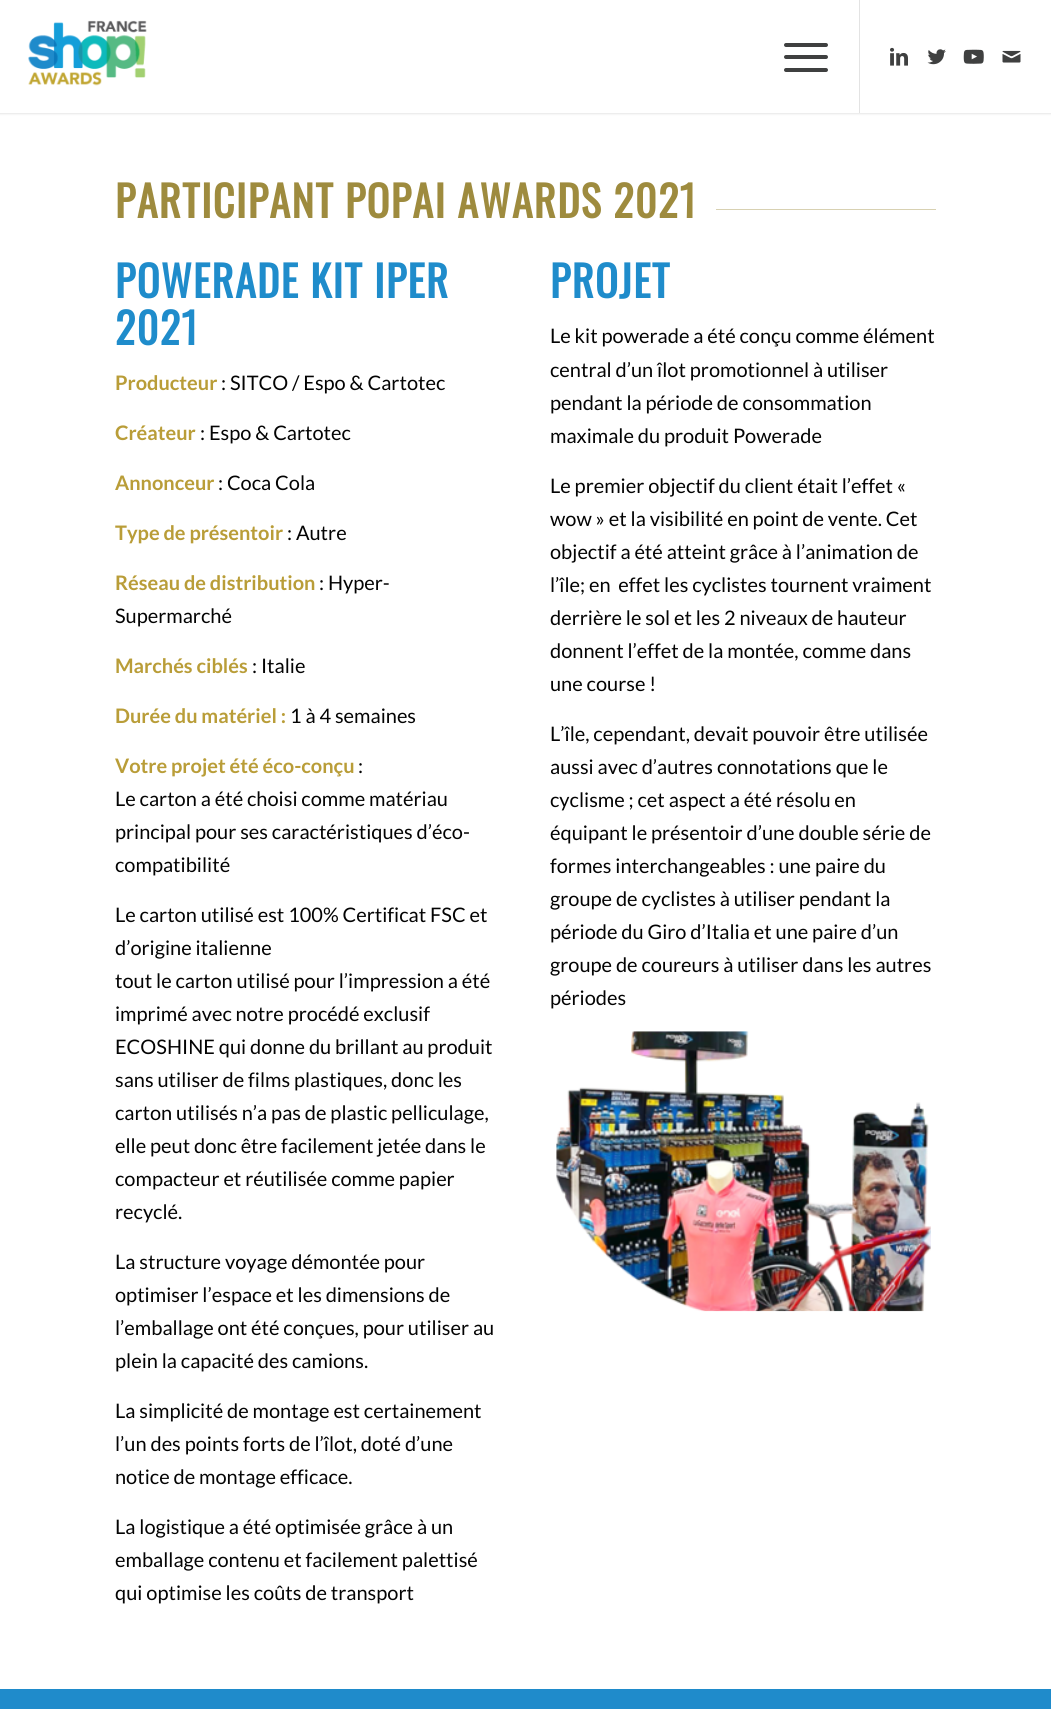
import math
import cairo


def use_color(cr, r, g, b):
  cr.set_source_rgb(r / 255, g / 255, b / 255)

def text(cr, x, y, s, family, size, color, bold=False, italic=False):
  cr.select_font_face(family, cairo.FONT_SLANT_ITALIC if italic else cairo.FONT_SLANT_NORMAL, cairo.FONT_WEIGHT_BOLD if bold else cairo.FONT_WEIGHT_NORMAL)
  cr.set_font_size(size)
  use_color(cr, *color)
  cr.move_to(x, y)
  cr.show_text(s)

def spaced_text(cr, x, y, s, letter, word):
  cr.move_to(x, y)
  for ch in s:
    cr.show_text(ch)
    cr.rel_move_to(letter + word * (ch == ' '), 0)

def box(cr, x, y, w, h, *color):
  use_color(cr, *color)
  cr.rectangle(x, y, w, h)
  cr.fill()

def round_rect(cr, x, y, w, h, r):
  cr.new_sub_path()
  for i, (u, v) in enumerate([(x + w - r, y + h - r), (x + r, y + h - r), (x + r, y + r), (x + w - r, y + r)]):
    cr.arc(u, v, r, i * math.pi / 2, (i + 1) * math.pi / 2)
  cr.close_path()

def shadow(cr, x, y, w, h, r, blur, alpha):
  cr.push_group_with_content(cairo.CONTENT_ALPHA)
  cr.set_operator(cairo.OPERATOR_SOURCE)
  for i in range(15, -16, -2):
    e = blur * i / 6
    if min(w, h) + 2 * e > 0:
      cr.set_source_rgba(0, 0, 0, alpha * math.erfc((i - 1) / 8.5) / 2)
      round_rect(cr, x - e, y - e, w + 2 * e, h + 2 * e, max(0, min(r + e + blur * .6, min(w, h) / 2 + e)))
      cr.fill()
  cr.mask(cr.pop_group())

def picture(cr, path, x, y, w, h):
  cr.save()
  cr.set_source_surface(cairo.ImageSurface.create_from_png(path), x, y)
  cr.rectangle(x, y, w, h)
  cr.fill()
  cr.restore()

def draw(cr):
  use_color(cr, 255, 255, 255)
  cr.paint()
  use_color(cr, 0, 0, 0)
  shadow(cr, -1, -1, 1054, 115, 0, 1, 0.1)
  box(cr, 0, 0, 1051, 113, 255, 255, 255)
  picture(cr, "img_01.png", 28, 20, 119, 66)
  box(cr, 859, 0, 1, 113, 227, 227, 227)
  use_color(cr, 63, 64, 64)
  round_rect(cr, 784, 55, 44, 4, 2)
  cr.fill()
  round_rect(cr, 784, 43, 44, 4, 2)
  cr.fill()
  round_rect(cr, 784, 68, 44, 4, 2)
  cr.fill()
  picture(cr, "img_02.png", 890, 47, 18, 19)
  picture(cr, "img_03.png", 927, 49, 19, 16)
  picture(cr, "img_04.png", 963, 49, 21, 15)
  picture(cr, "img_05.png", 1002, 50, 19, 13)
  box(cr, 716, 209, 220, 1, 216, 209, 178)
  picture(cr, "img_06.png", 556, 1031, 375, 281)
  box(cr, 0, 1689, 1051, 20, 31, 139, 203)
  cr.select_font_face("Oswald", cairo.FONT_SLANT_NORMAL, cairo.FONT_WEIGHT_BOLD)
  cr.set_font_size(42.5)
  use_color(cr, 158, 139, 62)
  spaced_text(cr, 115, 218, "PARTICIPANT POPAI AWARDS 2021", 1.25, 0)
  use_color(cr, 31, 140, 203)
  spaced_text(cr, 115, 298, "POWERADE KIT IPER", 1.25, 0)
  spaced_text(cr, 115, 345, "2021", 1.25, 0)
  text(cr, 115, 390, "Producteur", "Lato", 20, (185, 157, 56), bold=True)
  text(cr, 221, 390, ": SITCO / Espo & Cartotec", "Lato", 20, (3, 3, 3))
  text(cr, 115, 440, "Créateur", "Lato", 20, (185, 157, 56), bold=True)
  text(cr, 200, 440, ": Espo & Cartotec", "Lato", 20, (3, 3, 3))
  text(cr, 115, 490, "Annonceur", "Lato", 20, (185, 157, 56), bold=True)
  text(cr, 218, 490, ": Coca Cola", "Lato", 20, (3, 3, 3))
  text(cr, 115, 540, "Type de présentoir", "Lato", 20, (185, 157, 56), bold=True)
  text(cr, 287, 540, ": Autre", "Lato", 20, (3, 3, 3))
  text(cr, 115, 590, "Réseau de distribution", "Lato", 20, (185, 157, 56), bold=True)
  text(cr, 319, 590, ": Hyper-", "Lato", 20, (3, 3, 3))
  text(cr, 115, 623, "Supermarché", "Lato", 20, (3, 3, 3))
  text(cr, 115, 673, "Marchés ciblés", "Lato", 20, (185, 157, 56), bold=True)
  text(cr, 252, 673, ": Italie", "Lato", 20, (3, 3, 3))
  text(cr, 115, 723, "Durée du matériel :", "Lato", 20, (185, 157, 56), bold=True)
  text(cr, 290, 723, "1 à 4 semaines", "Lato", 20, (3, 3, 3))
  text(cr, 115, 773, "Votre projet été éco-conçu", "Lato", 20, (185, 157, 56), bold=True)
  text(cr, 358, 773, ":", "Lato", 20, (3, 3, 3))
  text(cr, 115, 806, "Le carton a été choisi comme matériau", "Lato", 20, (3, 3, 3))
  text(cr, 115, 839, "principal pour ses caractéristiques d’éco-", "Lato", 20, (3, 3, 3))
  text(cr, 115, 872, "compatibilité", "Lato", 20, (3, 3, 3))
  text(cr, 115, 922, "Le carton utilisé est 100% Certificat FSC et", "Lato", 20, (3, 3, 3))
  text(cr, 115, 955, "d’origine italienne", "Lato", 20, (3, 3, 3))
  text(cr, 115, 988, "tout le carton utilisé pour l’impression a été", "Lato", 20, (3, 3, 3))
  text(cr, 115, 1021, "imprimé avec notre procédé exclusif", "Lato", 20, (3, 3, 3))
  text(cr, 115, 1054, "ECOSHINE qui donne du brillant au produit", "Lato", 20, (3, 3, 3))
  text(cr, 115, 1087, "sans utiliser de films plastiques, donc les", "Lato", 20, (3, 3, 3))
  text(cr, 115, 1120, "carton utilisés n’a pas de plastic pelliculage,", "Lato", 20, (3, 3, 3))
  text(cr, 115, 1153, "elle peut donc être facilement jetée dans le", "Lato", 20, (3, 3, 3))
  text(cr, 115, 1186, "compacteur et réutilisée comme papier", "Lato", 20, (3, 3, 3))
  text(cr, 115, 1219, "recyclé.", "Lato", 20, (3, 3, 3))
  text(cr, 115, 1269, "La structure voyage démontée pour", "Lato", 20, (3, 3, 3))
  text(cr, 115, 1302, "optimiser l’espace et les dimensions de", "Lato", 20, (3, 3, 3))
  text(cr, 115, 1335, "l’emballage ont été conçues, pour utiliser au", "Lato", 20, (3, 3, 3))
  text(cr, 115, 1368, "plein la capacité des camions.", "Lato", 20, (3, 3, 3))
  text(cr, 115, 1418, "La simplicité de montage est certainement", "Lato", 20, (3, 3, 3))
  text(cr, 115, 1451, "l’un des points forts de l’îlot, doté d’une", "Lato", 20, (3, 3, 3))
  text(cr, 115, 1484, "notice de montage efficace.", "Lato", 20, (3, 3, 3))
  text(cr, 115, 1534, "La logistique a été optimisée grâce à un", "Lato", 20, (3, 3, 3))
  text(cr, 115, 1567, "emballage contenu et facilement palettisé", "Lato", 20, (3, 3, 3))
  text(cr, 115, 1600, "qui optimise les coûts de transport", "Lato", 20, (3, 3, 3))
  cr.select_font_face("Oswald", cairo.FONT_SLANT_NORMAL, cairo.FONT_WEIGHT_BOLD)
  cr.set_font_size(42.5)
  use_color(cr, 31, 140, 203)
  spaced_text(cr, 550, 298, "PROJET", 1.25, 0)
  text(cr, 550, 343, "Le kit powerade a été conçu comme élément", "Lato", 20, (3, 3, 3))
  text(cr, 550, 377, "central d’un îlot promotionnel à utiliser", "Lato", 20, (3, 3, 3))
  text(cr, 550, 410, "pendant la période de consommation", "Lato", 20, (3, 3, 3))
  text(cr, 550, 443, "maximale du produit Powerade", "Lato", 20, (3, 3, 3))
  text(cr, 550, 493, "Le premier objectif du client était l’effet «", "Lato", 20, (3, 3, 3))
  text(cr, 550, 526, "wow » et la visibilité en point de vente. Cet", "Lato", 20, (3, 3, 3))
  text(cr, 550, 559, "objectif a été atteint grâce à l’animation de", "Lato", 20, (3, 3, 3))
  text(cr, 550, 592, "l’île; en  effet les cyclistes tournent vraiment", "Lato", 20, (3, 3, 3))
  text(cr, 550, 625, "derrière le sol et les 2 niveaux de hauteur", "Lato", 20, (3, 3, 3))
  text(cr, 550, 658, "donnent l’effet de la montée, comme dans", "Lato", 20, (3, 3, 3))
  text(cr, 550, 691, "une course !", "Lato", 20, (3, 3, 3))
  text(cr, 550, 741, "L’île, cependant, devait pouvoir être utilisée", "Lato", 20, (3, 3, 3))
  text(cr, 550, 774, "aussi avec d’autres connotations que le", "Lato", 20, (3, 3, 3))
  text(cr, 550, 807, "cyclisme ; cet aspect a été résolu en", "Lato", 20, (3, 3, 3))
  text(cr, 550, 840, "équipant le présentoir d’une double série de", "Lato", 20, (3, 3, 3))
  text(cr, 550, 873, "formes interchangeables : une paire du", "Lato", 20, (3, 3, 3))
  text(cr, 550, 906, "groupe de cyclistes à utiliser pendant la", "Lato", 20, (3, 3, 3))
  text(cr, 550, 939, "période du Giro d’Italia et une paire d’un", "Lato", 20, (3, 3, 3))
  text(cr, 550, 972, "groupe de coureurs à utiliser dans les autres", "Lato", 20, (3, 3, 3))
  text(cr, 550, 1005, "périodes", "Lato", 20, (3, 3, 3))


surface = cairo.ImageSurface(cairo.FORMAT_RGB24, 1051, 1709)
cr = cairo.Context(surface)
options = cairo.FontOptions()
options.set_hint_metrics(cairo.HINT_METRICS_OFF)
options.set_hint_style(cairo.HINT_STYLE_NONE)
cr.set_font_options(options)
cr.set_miter_limit(4)
draw(cr)
surface.write_to_png("out.png")
